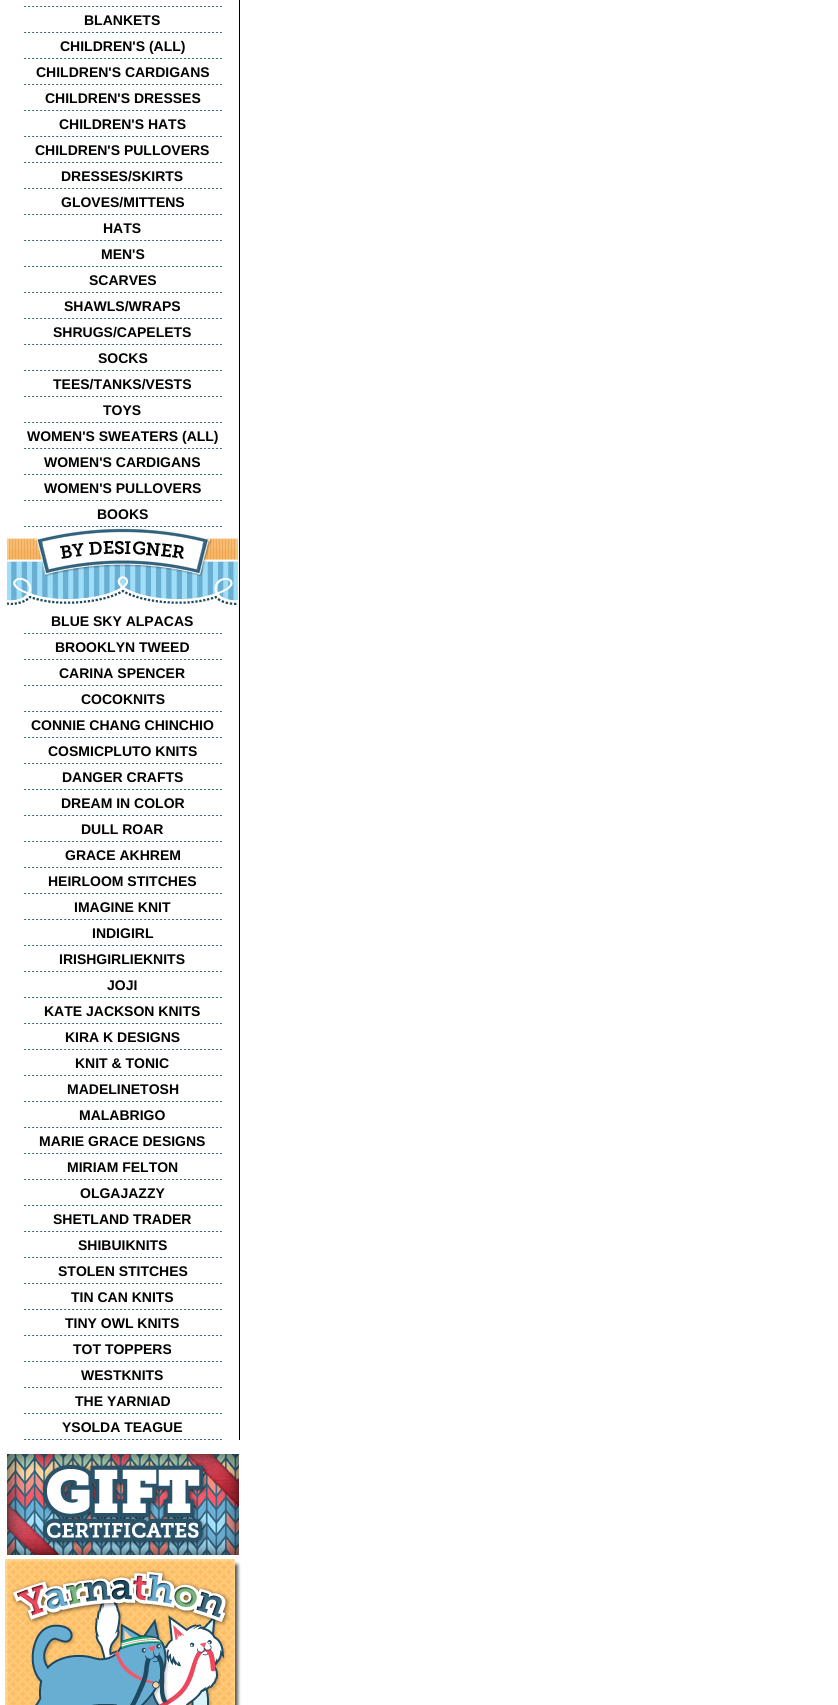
import math
import cairo


def use_color(cr, r, g, b):
  cr.set_source_rgb(r / 255, g / 255, b / 255)

def text(cr, x, y, s, family, size, color, bold=False, italic=False):
  cr.select_font_face(family, cairo.FONT_SLANT_ITALIC if italic else cairo.FONT_SLANT_NORMAL, cairo.FONT_WEIGHT_BOLD if bold else cairo.FONT_WEIGHT_NORMAL)
  cr.set_font_size(size)
  use_color(cr, *color)
  cr.move_to(x, y)
  cr.show_text(s)

def box(cr, x, y, w, h, *color):
  use_color(cr, *color)
  cr.rectangle(x, y, w, h)
  cr.fill()

def picture(cr, path, x, y, w, h):
  cr.save()
  cr.set_source_surface(cairo.ImageSurface.create_from_png(path), x, y)
  cr.rectangle(x, y, w, h)
  cr.fill()
  cr.restore()

def draw(cr):
  use_color(cr, 255, 255, 255)
  cr.paint()
  box(cr, 239, 0, 1, 1440, 0, 0, 0)
  picture(cr, "img_01.png", 24, 6, 198, 1)
  picture(cr, "img_01.png", 24, 32, 198, 1)
  picture(cr, "img_01.png", 24, 58, 198, 1)
  picture(cr, "img_01.png", 24, 84, 198, 1)
  picture(cr, "img_01.png", 24, 110, 198, 1)
  picture(cr, "img_01.png", 24, 136, 198, 1)
  picture(cr, "img_01.png", 24, 162, 198, 1)
  picture(cr, "img_01.png", 24, 188, 198, 1)
  picture(cr, "img_01.png", 24, 214, 198, 1)
  picture(cr, "img_01.png", 24, 240, 198, 1)
  picture(cr, "img_01.png", 24, 266, 198, 1)
  picture(cr, "img_01.png", 24, 292, 198, 1)
  picture(cr, "img_01.png", 24, 318, 198, 1)
  picture(cr, "img_01.png", 24, 344, 198, 1)
  picture(cr, "img_01.png", 24, 370, 198, 1)
  picture(cr, "img_01.png", 24, 396, 198, 1)
  picture(cr, "img_01.png", 24, 422, 198, 1)
  picture(cr, "img_01.png", 24, 448, 198, 1)
  picture(cr, "img_01.png", 24, 474, 198, 1)
  picture(cr, "img_01.png", 24, 500, 198, 1)
  picture(cr, "img_01.png", 24, 526, 198, 1)
  picture(cr, "img_02.png", 7, 527, 231, 78)
  picture(cr, "img_01.png", 24, 633, 198, 1)
  picture(cr, "img_01.png", 24, 659, 198, 1)
  picture(cr, "img_01.png", 24, 685, 198, 1)
  picture(cr, "img_01.png", 24, 711, 198, 1)
  picture(cr, "img_01.png", 24, 737, 198, 1)
  picture(cr, "img_01.png", 24, 763, 198, 1)
  picture(cr, "img_01.png", 24, 789, 198, 1)
  picture(cr, "img_01.png", 24, 815, 198, 1)
  picture(cr, "img_01.png", 24, 841, 198, 1)
  picture(cr, "img_01.png", 24, 867, 198, 1)
  picture(cr, "img_01.png", 24, 893, 198, 1)
  picture(cr, "img_01.png", 24, 919, 198, 1)
  picture(cr, "img_01.png", 24, 945, 198, 1)
  picture(cr, "img_01.png", 24, 971, 198, 1)
  picture(cr, "img_01.png", 24, 997, 198, 1)
  picture(cr, "img_01.png", 24, 1023, 198, 1)
  picture(cr, "img_01.png", 24, 1049, 198, 1)
  picture(cr, "img_01.png", 24, 1075, 198, 1)
  picture(cr, "img_01.png", 24, 1101, 198, 1)
  picture(cr, "img_01.png", 24, 1127, 198, 1)
  picture(cr, "img_01.png", 24, 1153, 198, 1)
  picture(cr, "img_01.png", 24, 1179, 198, 1)
  picture(cr, "img_01.png", 24, 1205, 198, 1)
  picture(cr, "img_01.png", 24, 1231, 198, 1)
  picture(cr, "img_01.png", 24, 1257, 198, 1)
  picture(cr, "img_01.png", 24, 1283, 198, 1)
  picture(cr, "img_01.png", 24, 1309, 198, 1)
  picture(cr, "img_01.png", 24, 1335, 198, 1)
  picture(cr, "img_01.png", 24, 1361, 198, 1)
  picture(cr, "img_01.png", 24, 1387, 198, 1)
  picture(cr, "img_01.png", 24, 1413, 198, 1)
  picture(cr, "img_01.png", 24, 1439, 198, 1)
  picture(cr, "img_03.png", 7, 1454, 232, 101)
  picture(cr, "img_04.png", 5, 1559, 236, 146)
  text(cr, 84, 25, "BLANKETS", "Liberation Sans", 14, (0, 0, 0), bold=True)
  text(cr, 60, 51, "CHILDREN'S (ALL)", "Liberation Sans", 14, (0, 0, 0), bold=True)
  text(cr, 36, 77, "CHILDREN'S CARDIGANS", "Liberation Sans", 14, (0, 0, 0), bold=True)
  text(cr, 45, 103, "CHILDREN'S DRESSES", "Liberation Sans", 14, (0, 0, 0), bold=True)
  text(cr, 59, 129, "CHILDREN'S HATS", "Liberation Sans", 14, (0, 0, 0), bold=True)
  text(cr, 35, 155, "CHILDREN'S PULLOVERS", "Liberation Sans", 14, (0, 0, 0), bold=True)
  text(cr, 61, 181, "DRESSES/SKIRTS", "Liberation Sans", 14, (0, 0, 0), bold=True)
  text(cr, 61, 207, "GLOVES/MITTENS", "Liberation Sans", 14, (0, 0, 0), bold=True)
  text(cr, 103, 233, "HATS", "Liberation Sans", 14, (0, 0, 0), bold=True)
  text(cr, 101, 259, "MEN'S", "Liberation Sans", 14, (0, 0, 0), bold=True)
  text(cr, 89, 285, "SCARVES", "Liberation Sans", 14, (0, 0, 0), bold=True)
  text(cr, 64, 311, "SHAWLS/WRAPS", "Liberation Sans", 14, (0, 0, 0), bold=True)
  text(cr, 53, 337, "SHRUGS/CAPELETS", "Liberation Sans", 14, (0, 0, 0), bold=True)
  text(cr, 98, 363, "SOCKS", "Liberation Sans", 14, (0, 0, 0), bold=True)
  text(cr, 53, 389, "TEES/TANKS/VESTS", "Liberation Sans", 14, (0, 0, 0), bold=True)
  text(cr, 103, 415, "TOYS", "Liberation Sans", 14, (0, 0, 0), bold=True)
  text(cr, 27, 441, "WOMEN'S SWEATERS (ALL)", "Liberation Sans", 14, (0, 0, 0), bold=True)
  text(cr, 44, 467, "WOMEN'S CARDIGANS", "Liberation Sans", 14, (0, 0, 0), bold=True)
  text(cr, 44, 493, "WOMEN'S PULLOVERS", "Liberation Sans", 14, (0, 0, 0), bold=True)
  text(cr, 97, 519, "BOOKS", "Liberation Sans", 14, (0, 0, 0), bold=True)
  text(cr, 51, 626, "BLUE SKY ALPACAS", "Liberation Sans", 14, (0, 0, 0), bold=True)
  text(cr, 55, 652, "BROOKLYN TWEED", "Liberation Sans", 14, (0, 0, 0), bold=True)
  text(cr, 59, 678, "CARINA SPENCER", "Liberation Sans", 14, (0, 0, 0), bold=True)
  text(cr, 81, 704, "COCOKNITS", "Liberation Sans", 14, (0, 0, 0), bold=True)
  text(cr, 31, 730, "CONNIE CHANG CHINCHIO", "Liberation Sans", 14, (0, 0, 0), bold=True)
  text(cr, 48, 756, "COSMICPLUTO KNITS", "Liberation Sans", 14, (0, 0, 0), bold=True)
  text(cr, 62, 782, "DANGER CRAFTS", "Liberation Sans", 14, (0, 0, 0), bold=True)
  text(cr, 61, 808, "DREAM IN COLOR", "Liberation Sans", 14, (0, 0, 0), bold=True)
  text(cr, 81, 834, "DULL ROAR", "Liberation Sans", 14, (0, 0, 0), bold=True)
  text(cr, 65, 860, "GRACE AKHREM", "Liberation Sans", 14, (0, 0, 0), bold=True)
  text(cr, 48, 886, "HEIRLOOM STITCHES", "Liberation Sans", 14, (0, 0, 0), bold=True)
  text(cr, 74, 912, "IMAGINE KNIT", "Liberation Sans", 14, (0, 0, 0), bold=True)
  text(cr, 92, 938, "INDIGIRL", "Liberation Sans", 14, (0, 0, 0), bold=True)
  text(cr, 59, 964, "IRISHGIRLIEKNITS", "Liberation Sans", 14, (0, 0, 0), bold=True)
  text(cr, 107, 990, "JOJI", "Liberation Sans", 14, (0, 0, 0), bold=True)
  text(cr, 44, 1016, "KATE JACKSON KNITS", "Liberation Sans", 14, (0, 0, 0), bold=True)
  text(cr, 65, 1042, "KIRA K DESIGNS", "Liberation Sans", 14, (0, 0, 0), bold=True)
  text(cr, 75, 1068, "KNIT & TONIC", "Liberation Sans", 14, (0, 0, 0), bold=True)
  text(cr, 67, 1094, "MADELINETOSH", "Liberation Sans", 14, (0, 0, 0), bold=True)
  text(cr, 79, 1120, "MALABRIGO", "Liberation Sans", 14, (0, 0, 0), bold=True)
  text(cr, 39, 1146, "MARIE GRACE DESIGNS", "Liberation Sans", 14, (0, 0, 0), bold=True)
  text(cr, 67, 1172, "MIRIAM FELTON", "Liberation Sans", 14, (0, 0, 0), bold=True)
  text(cr, 80, 1198, "OLGAJAZZY", "Liberation Sans", 14, (0, 0, 0), bold=True)
  text(cr, 53, 1224, "SHETLAND TRADER", "Liberation Sans", 14, (0, 0, 0), bold=True)
  text(cr, 78, 1250, "SHIBUIKNITS", "Liberation Sans", 14, (0, 0, 0), bold=True)
  text(cr, 58, 1276, "STOLEN STITCHES", "Liberation Sans", 14, (0, 0, 0), bold=True)
  text(cr, 71, 1302, "TIN CAN KNITS", "Liberation Sans", 14, (0, 0, 0), bold=True)
  text(cr, 65, 1328, "TINY OWL KNITS", "Liberation Sans", 14, (0, 0, 0), bold=True)
  text(cr, 73, 1354, "TOT TOPPERS", "Liberation Sans", 14, (0, 0, 0), bold=True)
  text(cr, 81, 1380, "WESTKNITS", "Liberation Sans", 14, (0, 0, 0), bold=True)
  text(cr, 75, 1406, "THE YARNIAD", "Liberation Sans", 14, (0, 0, 0), bold=True)
  text(cr, 62, 1432, "YSOLDA TEAGUE", "Liberation Sans", 14, (0, 0, 0), bold=True)


surface = cairo.ImageSurface(cairo.FORMAT_RGB24, 838, 1705)
cr = cairo.Context(surface)
options = cairo.FontOptions()
options.set_hint_metrics(cairo.HINT_METRICS_OFF)
options.set_hint_style(cairo.HINT_STYLE_NONE)
cr.set_font_options(options)
cr.set_miter_limit(4)
draw(cr)
surface.write_to_png("out.png")
